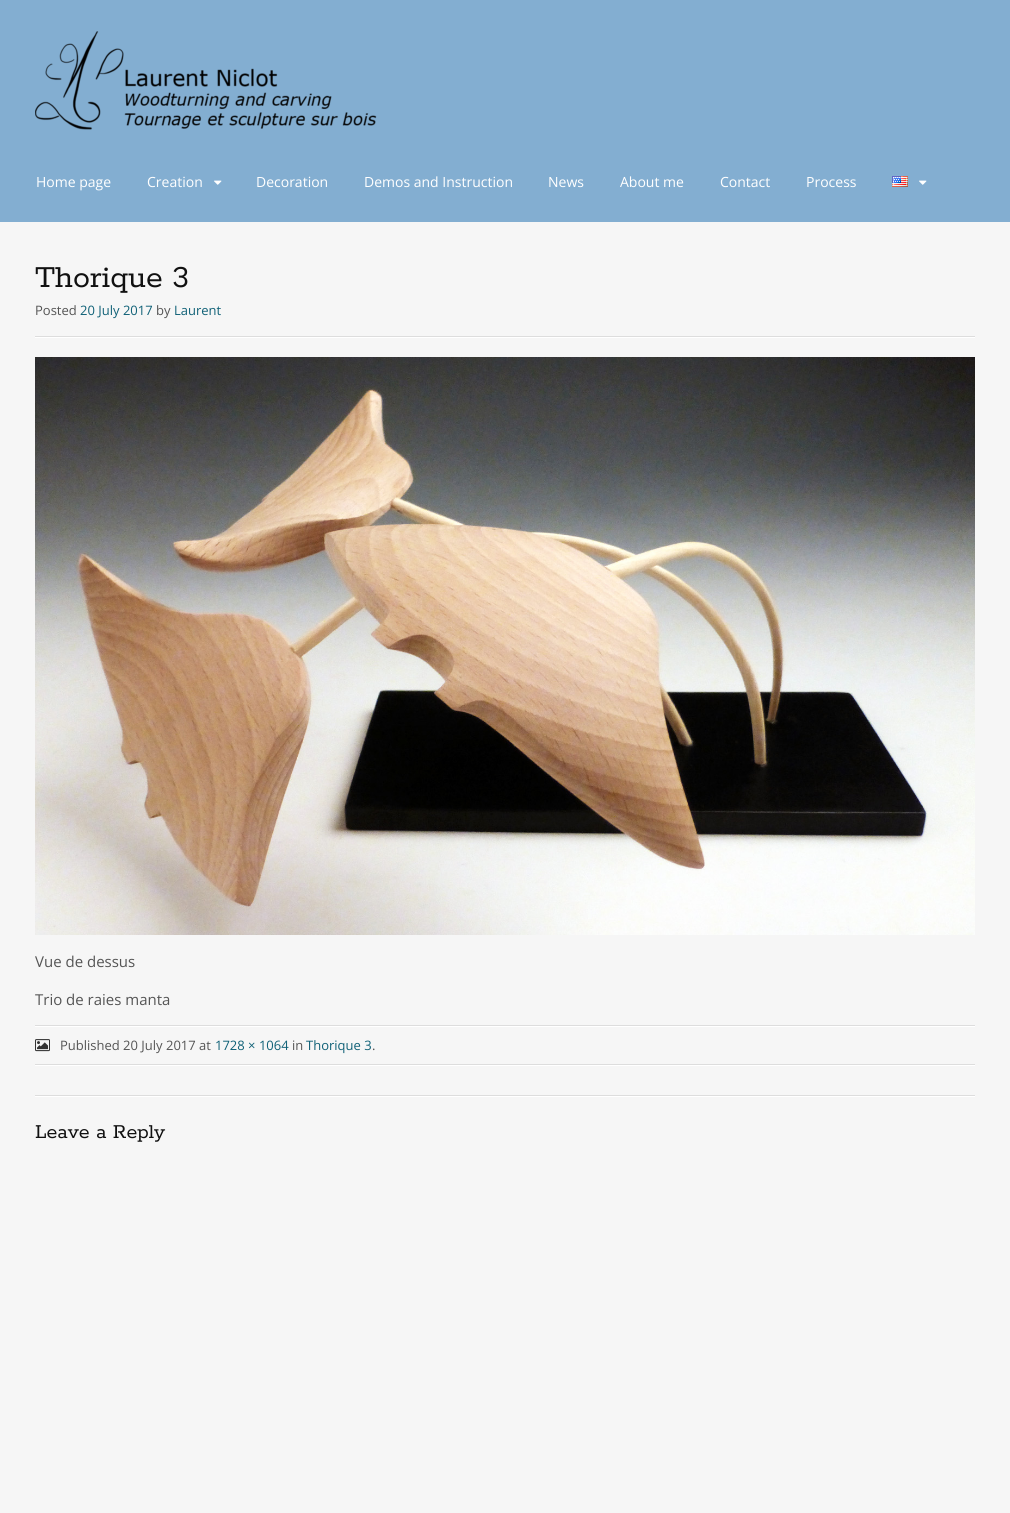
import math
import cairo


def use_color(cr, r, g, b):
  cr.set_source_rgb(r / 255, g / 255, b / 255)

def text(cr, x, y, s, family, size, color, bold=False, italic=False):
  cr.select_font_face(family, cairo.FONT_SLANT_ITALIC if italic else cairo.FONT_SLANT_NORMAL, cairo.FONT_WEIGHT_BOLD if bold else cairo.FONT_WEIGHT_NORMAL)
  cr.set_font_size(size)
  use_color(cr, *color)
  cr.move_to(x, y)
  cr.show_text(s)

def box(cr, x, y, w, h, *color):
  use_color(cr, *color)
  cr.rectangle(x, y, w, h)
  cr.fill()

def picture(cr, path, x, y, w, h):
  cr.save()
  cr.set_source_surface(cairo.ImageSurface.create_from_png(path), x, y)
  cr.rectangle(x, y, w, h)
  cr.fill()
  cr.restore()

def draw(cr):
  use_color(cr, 246, 246, 246)
  cr.paint()
  box(cr, 0, 0, 1010, 222, 131, 174, 209)
  picture(cr, "img_01.png", 35, 31, 342, 99)
  picture(cr, "img_02.png", 214, 180, 8, 5)
  picture(cr, "img_03.png", 892, 176, 16, 11)
  picture(cr, "img_02.png", 919, 180, 8, 5)
  box(cr, 35, 337, 940, 1, 255, 255, 255)
  box(cr, 35, 336, 940, 1, 221, 221, 221)
  picture(cr, "img_04.png", 35, 357, 940, 578)
  box(cr, 35, 1026, 940, 1, 255, 255, 255)
  box(cr, 35, 1025, 940, 1, 221, 221, 221)
  picture(cr, "img_05.png", 35, 1039, 15, 13)
  box(cr, 35, 1065, 940, 1, 255, 255, 255)
  box(cr, 35, 1064, 940, 1, 221, 221, 221)
  box(cr, 35, 1096, 940, 1, 255, 255, 255)
  box(cr, 35, 1095, 940, 1, 221, 221, 221)
  text(cr, 36, 187, "Home page", "Open Sans", 14, (255, 255, 255))
  text(cr, 147, 187, "Creation", "Open Sans", 14, (255, 255, 255))
  text(cr, 256, 187, "Decoration", "Open Sans", 14, (255, 255, 255))
  text(cr, 364, 187, "Demos and Instruction", "Open Sans", 14, (255, 255, 255))
  text(cr, 548, 187, "News", "Open Sans", 14, (255, 255, 255))
  text(cr, 620, 187, "About me", "Open Sans", 14, (255, 255, 255))
  text(cr, 720, 187, "Contact", "Open Sans", 14, (255, 255, 255))
  text(cr, 806, 187, "Process", "Open Sans", 14, (255, 255, 255))
  text(cr, 35, 287, "Thorique 3", "Rokkitt", 34, (17, 17, 17))
  text(cr, 35, 315, "Posted", "Open Sans", 13, (85, 85, 85))
  text(cr, 80, 315, "20 July 2017", "Open Sans", 13, (16, 97, 119))
  text(cr, 156, 315, "by", "Open Sans", 13, (85, 85, 85))
  text(cr, 174, 315, "Laurent", "Open Sans", 13, (16, 97, 119))
  text(cr, 35, 967, "Vue de dessus", "Open Sans", 15, (85, 85, 85))
  text(cr, 35, 1005, "Trio de raies manta", "Open Sans", 15, (85, 85, 85))
  text(cr, 60, 1050, "Published 20 July 2017 at", "Open Sans", 13, (85, 85, 85))
  text(cr, 215, 1050, "1728 × 1064", "Open Sans", 13, (16, 97, 119))
  text(cr, 292, 1050, "in", "Open Sans", 13, (85, 85, 85))
  text(cr, 306, 1050, "Thorique 3", "Open Sans", 13, (16, 97, 119))
  text(cr, 372, 1050, ".", "Open Sans", 13, (85, 85, 85))
  text(cr, 35, 1138, "Leave a Reply", "Rokkitt", 22, (17, 17, 17))


surface = cairo.ImageSurface(cairo.FORMAT_RGB24, 1010, 1513)
cr = cairo.Context(surface)
options = cairo.FontOptions()
options.set_hint_metrics(cairo.HINT_METRICS_OFF)
options.set_hint_style(cairo.HINT_STYLE_NONE)
cr.set_font_options(options)
cr.set_miter_limit(4)
draw(cr)
surface.write_to_png("out.png")
